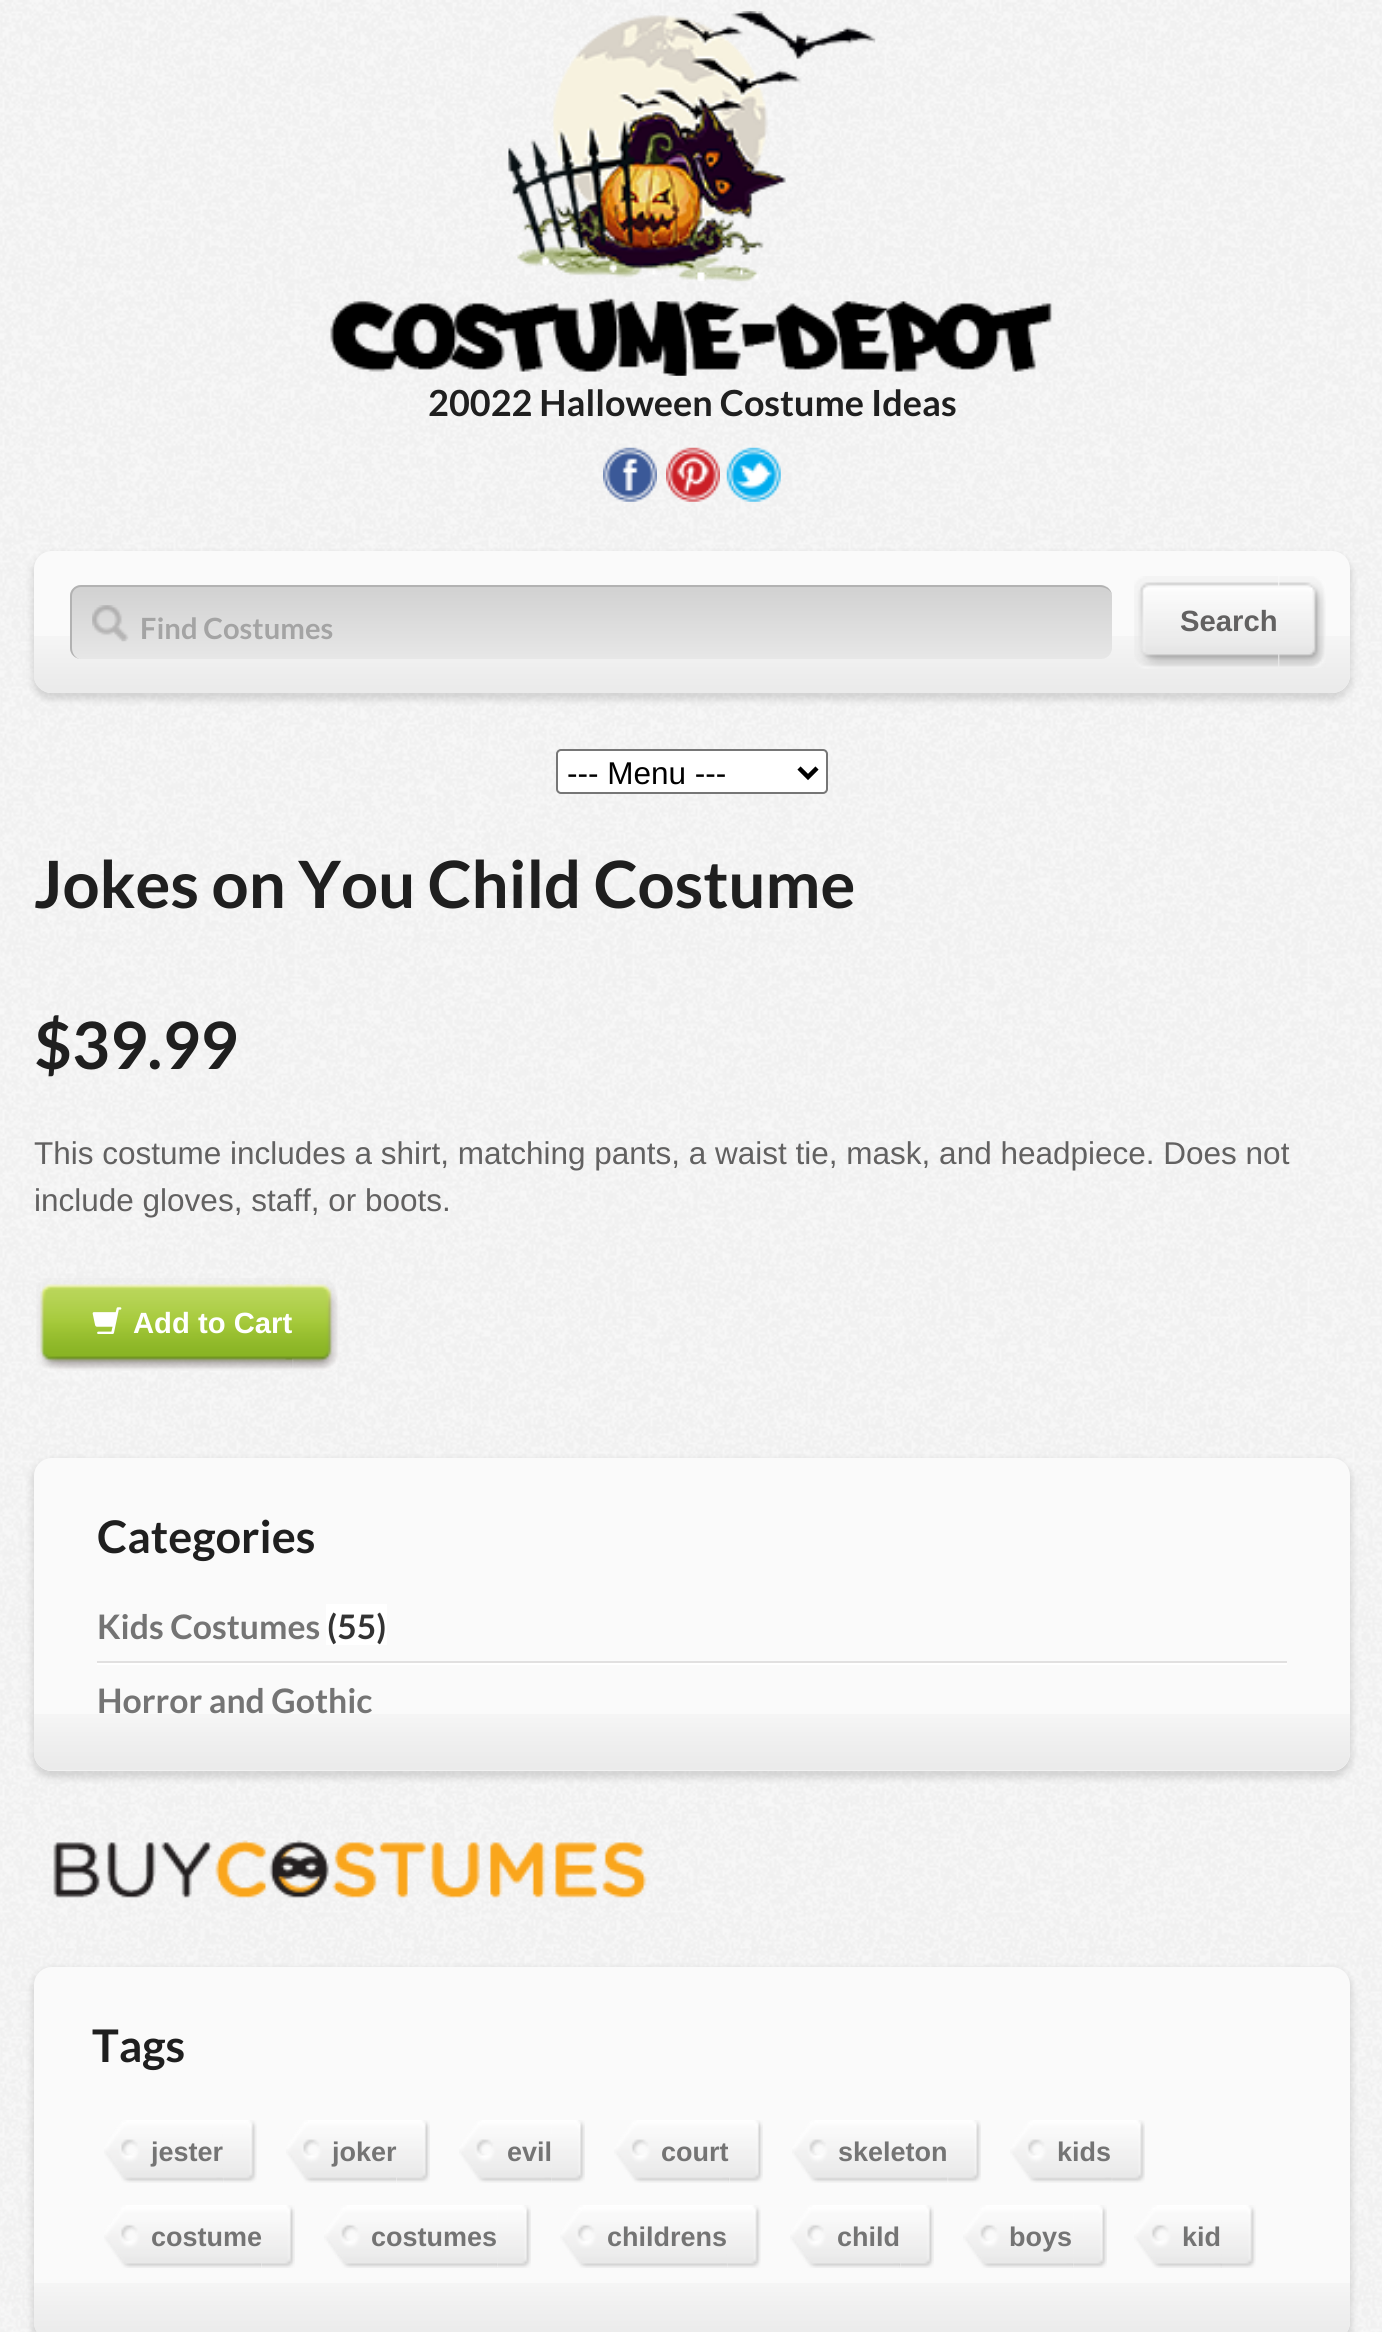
import math
import cairo


def use_color(cr, r, g, b):
  cr.set_source_rgb(r / 255, g / 255, b / 255)

def text(cr, x, y, s, family, size, color, bold=False, italic=False):
  cr.select_font_face(family, cairo.FONT_SLANT_ITALIC if italic else cairo.FONT_SLANT_NORMAL, cairo.FONT_WEIGHT_BOLD if bold else cairo.FONT_WEIGHT_NORMAL)
  cr.set_font_size(size)
  use_color(cr, *color)
  cr.move_to(x, y)
  cr.show_text(s)

def box(cr, x, y, w, h, *color):
  use_color(cr, *color)
  cr.rectangle(x, y, w, h)
  cr.fill()

def round_rect(cr, x, y, w, h, r):
  cr.new_sub_path()
  for i, (u, v) in enumerate([(x + w - r, y + h - r), (x + r, y + h - r), (x + r, y + r), (x + w - r, y + r)]):
    cr.arc(u, v, r, i * math.pi / 2, (i + 1) * math.pi / 2)
  cr.close_path()

def shadow(cr, x, y, w, h, r, blur, alpha):
  cr.push_group_with_content(cairo.CONTENT_ALPHA)
  cr.set_operator(cairo.OPERATOR_SOURCE)
  for i in range(15, -16, -2):
    e = blur * i / 6
    if min(w, h) + 2 * e > 0:
      cr.set_source_rgba(0, 0, 0, alpha * math.erfc((i - 1) / 8.5) / 2)
      round_rect(cr, x - e, y - e, w + 2 * e, h + 2 * e, max(0, min(r + e + blur * .6, min(w, h) / 2 + e)))
      cr.fill()
  cr.mask(cr.pop_group())

def picture(cr, path, x, y, w, h):
  cr.save()
  cr.set_source_surface(cairo.ImageSurface.create_from_png(path), x, y)
  cr.rectangle(x, y, w, h)
  cr.fill()
  cr.restore()

def draw(cr):
  use_color(cr, 255, 255, 255)
  cr.paint()
  picture(cr, "img_01.png", 0, 0, 1382, 2332)
  picture(cr, "img_02.png", 508, 11, 368, 271)
  picture(cr, "img_03.png", 330, 298, 722, 78)
  picture(cr, "img_04.png", 603, 447, 54, 55)
  picture(cr, "img_05.png", 666, 447, 54, 55)
  picture(cr, "img_06.png", 726, 447, 55, 55)
  use_color(cr, 0, 0, 0)
  shadow(cr, 32, 554, 1320, 146, 20, 3.5, 0.13)
  use_color(cr, 250, 250, 250)
  round_rect(cr, 34, 551, 1316, 142, 18)
  cr.fill()
  picture(cr, "img_07.png", 34, 636, 1316, 57)
  cr.save()
  round_rect(cr, 70, 585, 1042, 74, 11)
  cr.clip()
  gradient = cairo.LinearGradient(592, 587, 592, 659)
  gradient.add_color_stop_rgba(0, 0.82, 0.82, 0.82, 1)
  gradient.add_color_stop_rgba(1, 0.906, 0.906, 0.906, 1)
  cr.set_source(gradient)
  cr.new_path()
  cr.move_to(70, 587)
  cr.line_to(1112, 587)
  cr.line_to(1112, 648)
  cr.curve_to(1112, 654, 1107, 659, 1101, 659)
  cr.line_to(81, 659)
  cr.curve_to(75, 659, 70, 654, 70, 648)
  cr.close_path()
  cr.fill()
  gradient = cairo.LinearGradient(592, 515, 592, 587)
  gradient.add_color_stop_rgba(0, 0.82, 0.82, 0.82, 1)
  gradient.add_color_stop_rgba(1, 0.906, 0.906, 0.906, 1)
  cr.set_source(gradient)
  cr.rectangle(70, 585, 1042, 2)
  cr.fill()
  cr.restore()
  use_color(cr, 178, 178, 178)
  cr.set_fill_rule(cairo.FILL_RULE_EVEN_ODD)
  cr.new_path()
  cr.move_to(81, 585)
  cr.line_to(1100, 585)
  cr.curve_to(1106, 585, 1112, 590, 1112, 596)
  cr.line_to(1112, 648)
  cr.curve_to(1112, 654, 1106, 659, 1100, 659)
  cr.line_to(81, 659)
  cr.curve_to(75, 659, 70, 654, 70, 648)
  cr.line_to(70, 596)
  cr.curve_to(70, 590, 75, 585, 81, 585)
  cr.close_path()
  cr.move_to(81, 587)
  cr.line_to(1100, 587)
  cr.curve_to(1106, 587, 1112, 591, 1112, 596)
  cr.line_to(1112, 648)
  cr.curve_to(1112, 654, 1106, 659, 1100, 659)
  cr.line_to(81, 659)
  cr.curve_to(76, 659, 72, 654, 72, 648)
  cr.line_to(72, 596)
  cr.curve_to(72, 591, 76, 587, 81, 587)
  cr.close_path()
  cr.fill()
  picture(cr, "img_08.png", 92, 605, 37, 37)
  picture(cr, "img_09.png", 1272, 576, 54, 92)
  picture(cr, "img_10.png", 1134, 576, 144, 93)
  use_color(cr, 255, 255, 255)
  round_rect(cr, 557, 750, 270, 43, 4)
  cr.fill_preserve()
  use_color(cr, 118, 118, 118)
  cr.stroke()
  cr.new_path()
  cr.move_to(799, 768)
  cr.line_to(808, 777)
  cr.line_to(817, 768)
  use_color(cr, 0, 0, 0)
  cr.set_line_width(4.5)
  cr.stroke()
  picture(cr, "img_11.png", 285, 1278, 55, 93)
  picture(cr, "img_12.png", 36, 1278, 257, 93)
  picture(cr, "img_13.png", 92, 1307, 30, 27)
  use_color(cr, 0, 0, 0)
  shadow(cr, 32, 1460, 1320, 318, 20, 3.5, 0.13)
  use_color(cr, 250, 250, 250)
  round_rect(cr, 34, 1458, 1316, 313, 18)
  cr.fill()
  picture(cr, "img_14.png", 34, 1714, 1316, 57)
  box(cr, 97, 1661, 1190, 2, 225, 224, 224)
  box(cr, 326, 1604, 61, 41, 255, 255, 255)
  box(cr, 97, 1663, 1190, 2, 255, 255, 255)
  picture(cr, "img_15.png", 53, 1840, 594, 58)
  use_color(cr, 0, 0, 0)
  shadow(cr, 32, 1969, 1320, 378, 20, 3.5, 0.13)
  use_color(cr, 250, 250, 250)
  round_rect(cr, 34, 1967, 1316, 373, 18)
  cr.fill()
  picture(cr, "img_16.png", 34, 2283, 1316, 49)
  picture(cr, "img_17.png", 216, 2120, 41, 63)
  picture(cr, "img_18.png", 104, 2120, 119, 63)
  picture(cr, "img_19.png", 389, 2120, 41, 63)
  picture(cr, "img_20.png", 286, 2120, 110, 63)
  picture(cr, "img_21.png", 544, 2120, 41, 63)
  picture(cr, "img_22.png", 459, 2120, 93, 63)
  picture(cr, "img_23.png", 722, 2120, 41, 63)
  picture(cr, "img_24.png", 614, 2120, 115, 63)
  picture(cr, "img_25.png", 940, 2120, 41, 63)
  picture(cr, "img_26.png", 792, 2120, 156, 63)
  picture(cr, "img_27.png", 1104, 2120, 41, 63)
  picture(cr, "img_28.png", 1010, 2120, 102, 63)
  picture(cr, "img_29.png", 254, 2205, 41, 63)
  picture(cr, "img_30.png", 104, 2205, 157, 63)
  picture(cr, "img_31.png", 490, 2205, 41, 63)
  picture(cr, "img_32.png", 324, 2205, 174, 63)
  picture(cr, "img_33.png", 720, 2205, 41, 63)
  picture(cr, "img_34.png", 560, 2205, 167, 63)
  picture(cr, "img_35.png", 893, 2205, 41, 63)
  picture(cr, "img_36.png", 790, 2205, 110, 63)
  picture(cr, "img_31.png", 1066, 2205, 41, 63)
  picture(cr, "img_37.png", 963, 2205, 111, 63)
  picture(cr, "img_38.png", 1214, 2205, 42, 63)
  picture(cr, "img_39.png", 1134, 2205, 88, 63)
  text(cr, 428, 416, "20022 Halloween Costume Ideas", "Lato", 36, (31, 31, 31), bold=True)
  text(cr, 140, 639, "Find Costumes", "Lato", 29.25, (164, 164, 164), bold=True)
  text(cr, 1180, 631, "Search", "Liberation Sans", 29.25, (98, 97, 97), bold=True)
  text(cr, 567, 784, "--- Menu ---", "Liberation Sans", 31.5, (0, 0, 0))
  text(cr, 34, 908, "Jokes on You Child Costume", "Lato", 65.25, (31, 31, 31), bold=True)
  text(cr, 34, 1069, "$39.99", "Lato", 65.25, (31, 31, 31), bold=True)
  text(cr, 34, 1164, "This costume includes a shirt, matching pants, a waist tie, mask, and headpiece. Does not", "Liberation Sans", 31.5, (98, 97, 97))
  text(cr, 34, 1211, "include gloves, staff, or boots.", "Liberation Sans", 31.5, (98, 97, 97))
  text(cr, 133, 1333, "Add to Cart", "Liberation Sans", 29.25, (255, 255, 255), bold=True)
  text(cr, 97, 1553, "Categories", "Lato", 45, (31, 31, 31), bold=True)
  text(cr, 97, 1639, "Kids Costumes", "Lato", 33.75, (116, 116, 116), bold=True)
  text(cr, 327, 1639, "(55)", "Lato", 33.75, (51, 51, 51), bold=True)
  text(cr, 97, 1713, "Horror and Gothic", "Lato", 33.75, (116, 116, 116), bold=True)
  text(cr, 92, 2062, "Tags", "Lato", 45, (31, 31, 31), bold=True)
  text(cr, 151, 2161, "jester", "Liberation Sans", 27, (116, 116, 116), bold=True)
  text(cr, 332, 2161, "joker", "Liberation Sans", 27, (116, 116, 116), bold=True)
  text(cr, 507, 2161, "evil", "Liberation Sans", 27, (116, 116, 116), bold=True)
  text(cr, 661, 2161, "court", "Liberation Sans", 27, (116, 116, 116), bold=True)
  text(cr, 838, 2161, "skeleton", "Liberation Sans", 27, (116, 116, 116), bold=True)
  text(cr, 1057, 2161, "kids", "Liberation Sans", 27, (116, 116, 116), bold=True)
  text(cr, 151, 2246, "costume", "Liberation Sans", 27, (116, 116, 116), bold=True)
  text(cr, 371, 2246, "costumes", "Liberation Sans", 27, (116, 116, 116), bold=True)
  text(cr, 607, 2246, "childrens", "Liberation Sans", 27, (116, 116, 116), bold=True)
  text(cr, 837, 2246, "child", "Liberation Sans", 27, (116, 116, 116), bold=True)
  text(cr, 1009, 2246, "boys", "Liberation Sans", 27, (116, 116, 116), bold=True)
  text(cr, 1182, 2246, "kid", "Liberation Sans", 27, (116, 116, 116), bold=True)


surface = cairo.ImageSurface(cairo.FORMAT_RGB24, 1382, 2332)
cr = cairo.Context(surface)
options = cairo.FontOptions()
options.set_hint_metrics(cairo.HINT_METRICS_OFF)
options.set_hint_style(cairo.HINT_STYLE_NONE)
cr.set_font_options(options)
cr.set_miter_limit(4)
draw(cr)
surface.write_to_png("out.png")
